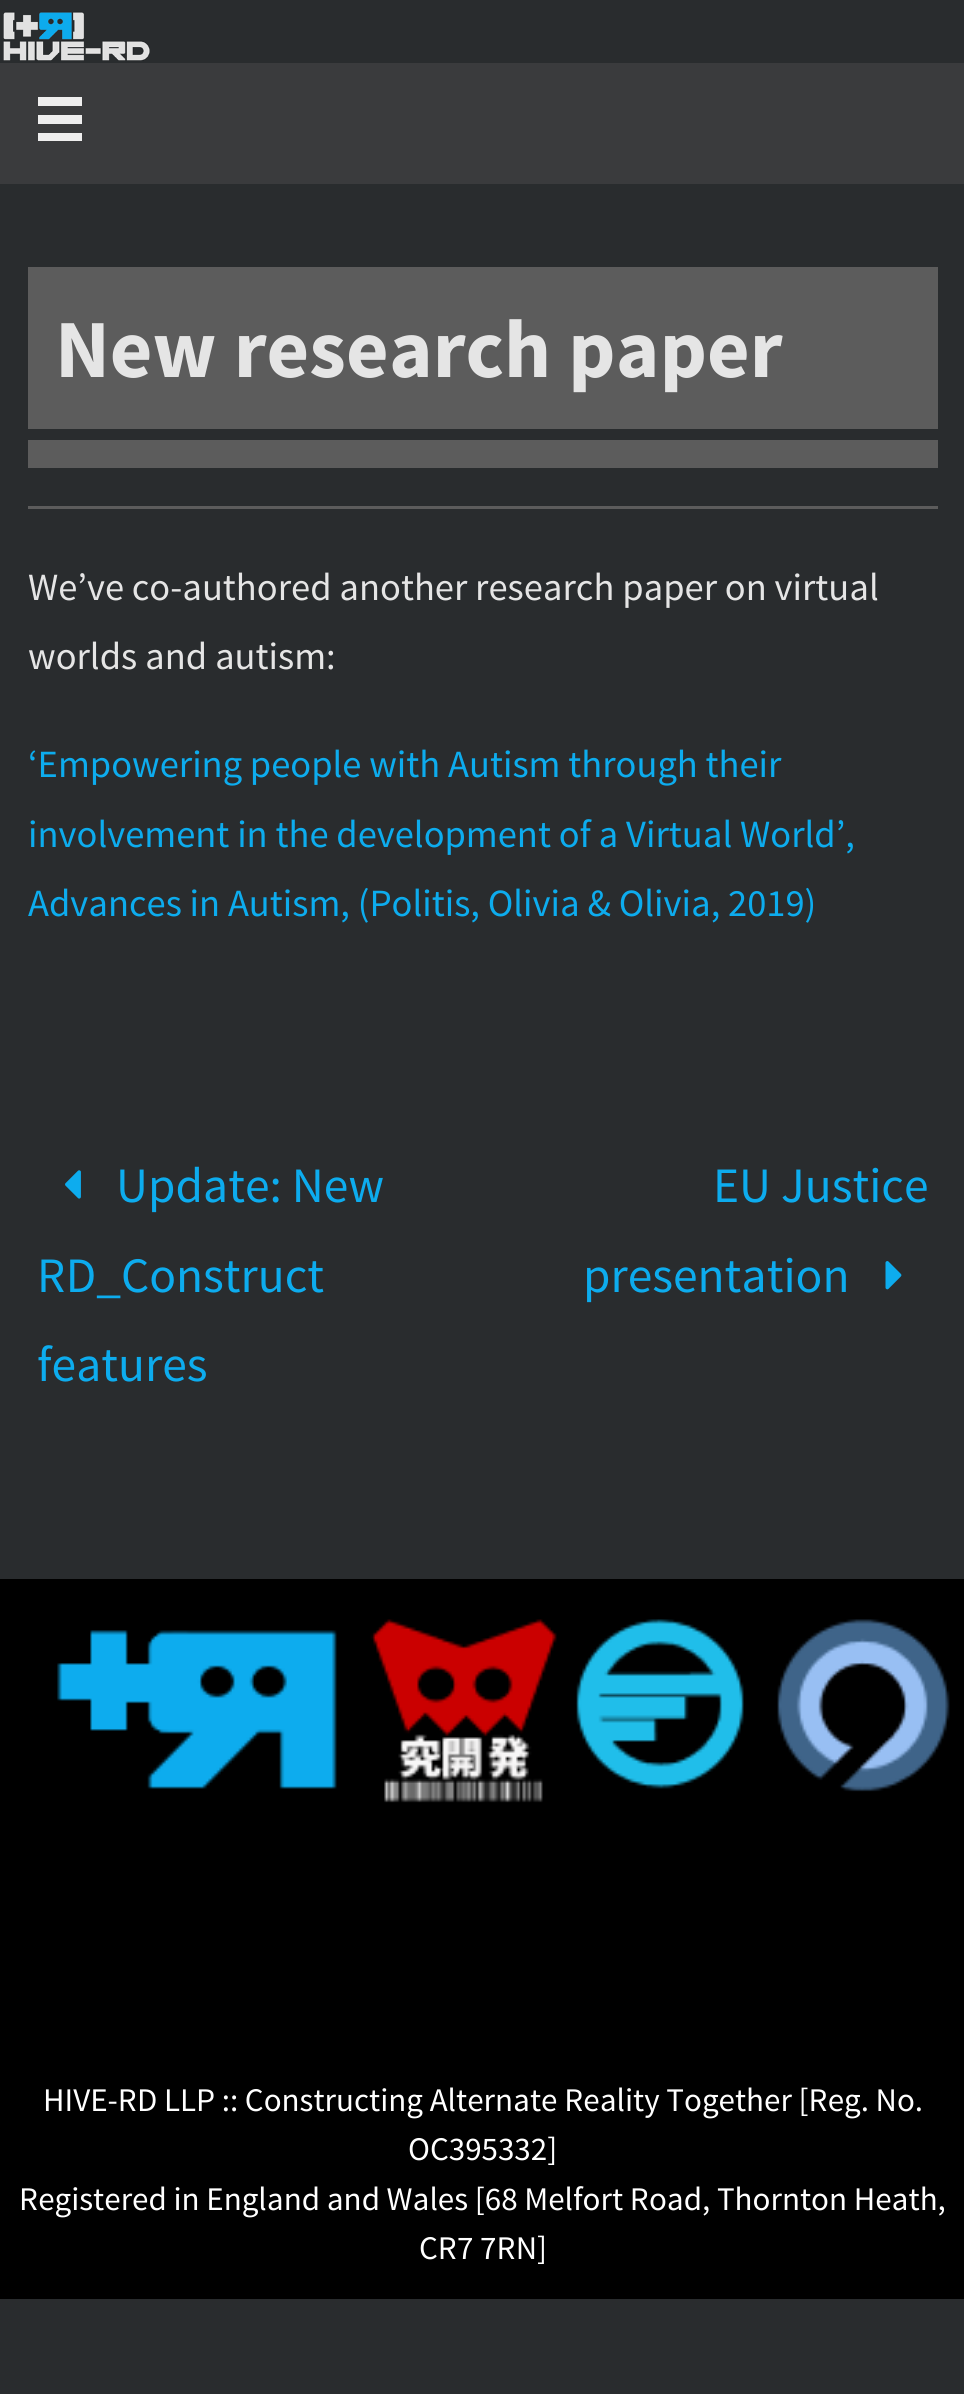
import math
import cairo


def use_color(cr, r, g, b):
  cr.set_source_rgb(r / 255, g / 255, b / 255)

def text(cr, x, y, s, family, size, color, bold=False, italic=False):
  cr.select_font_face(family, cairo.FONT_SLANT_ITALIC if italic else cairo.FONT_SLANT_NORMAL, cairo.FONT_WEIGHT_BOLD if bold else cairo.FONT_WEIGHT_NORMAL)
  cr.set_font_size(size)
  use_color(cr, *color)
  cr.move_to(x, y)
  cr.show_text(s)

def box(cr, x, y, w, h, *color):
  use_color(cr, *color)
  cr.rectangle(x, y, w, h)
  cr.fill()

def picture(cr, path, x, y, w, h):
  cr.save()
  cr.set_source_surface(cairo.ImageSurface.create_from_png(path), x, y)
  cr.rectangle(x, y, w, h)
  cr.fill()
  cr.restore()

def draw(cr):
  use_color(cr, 41, 44, 46)
  cr.paint()
  picture(cr, "img_01.png", 3, 11, 147, 50)
  box(cr, 0, 63, 964, 121, 58, 59, 61)
  use_color(cr, 238, 238, 238)
  cr.new_path()
  cr.move_to(38, 97)
  cr.line_to(38, 106)
  cr.line_to(82, 106)
  cr.line_to(82, 97)
  cr.close_path()
  cr.move_to(38, 115)
  cr.line_to(38, 124)
  cr.line_to(82, 124)
  cr.line_to(82, 115)
  cr.close_path()
  cr.move_to(38, 133)
  cr.line_to(38, 141)
  cr.line_to(82, 141)
  cr.line_to(82, 133)
  cr.close_path()
  cr.fill()
  box(cr, 28, 267, 910, 162, 92, 92, 92)
  box(cr, 28, 440, 910, 28, 92, 92, 92)
  box(cr, 28, 506, 910, 3, 92, 92, 92)
  picture(cr, "img_02.png", 65, 1170, 16, 29)
  picture(cr, "img_03.png", 885, 1261, 17, 29)
  box(cr, 0, 1579, 964, 720, 0, 0, 0)
  picture(cr, "img_04.png", 57, 1619, 893, 184)
  text(cr, 55, 377, "New research paper", "Source Sans Pro", 82.5, (229, 229, 229), bold=True)
  text(cr, 28, 600, "We’ve co-authored another research paper on virtual", "Source Sans Pro", 38.5, (229, 229, 229))
  text(cr, 28, 669, "worlds and autism:", "Source Sans Pro", 38.5, (229, 229, 229))
  text(cr, 28, 777, "‘Empowering people with Autism through their", "Source Sans Pro", 38.5, (13, 172, 238))
  text(cr, 28, 847, "involvement in the development of a Virtual World’,", "Source Sans Pro", 38.5, (13, 172, 238))
  text(cr, 28, 916, "Advances in Autism, (Politis, Olivia & Olivia, 2019)", "Source Sans Pro", 38.5, (13, 172, 238))
  text(cr, 116, 1202, "Update: New", "Source Sans Pro", 49.5, (13, 172, 238))
  text(cr, 37, 1292, "RD_Construct", "Source Sans Pro", 49.5, (13, 172, 238))
  text(cr, 37, 1381, "features", "Source Sans Pro", 49.5, (13, 172, 238))
  text(cr, 713, 1202, "EU Justice", "Source Sans Pro", 49.5, (13, 172, 238))
  text(cr, 583, 1292, "presentation", "Source Sans Pro", 49.5, (13, 172, 238))
  text(cr, 43, 2111, "HIVE-RD LLP :: Constructing Alternate Reality Together [Reg. No.", "Source Sans Pro", 33, (255, 255, 255))
  text(cr, 408, 2160, "OC395332]", "Source Sans Pro", 33, (255, 255, 255))
  text(cr, 19, 2210, "Registered in England and Wales [68 Melfort Road, Thornton Heath,", "Source Sans Pro", 33, (255, 255, 255))
  text(cr, 419, 2259, "CR7 7RN]", "Source Sans Pro", 33, (255, 255, 255))


surface = cairo.ImageSurface(cairo.FORMAT_RGB24, 964, 2394)
cr = cairo.Context(surface)
options = cairo.FontOptions()
options.set_hint_metrics(cairo.HINT_METRICS_OFF)
options.set_hint_style(cairo.HINT_STYLE_NONE)
cr.set_font_options(options)
cr.set_miter_limit(4)
draw(cr)
surface.write_to_png("out.png")
